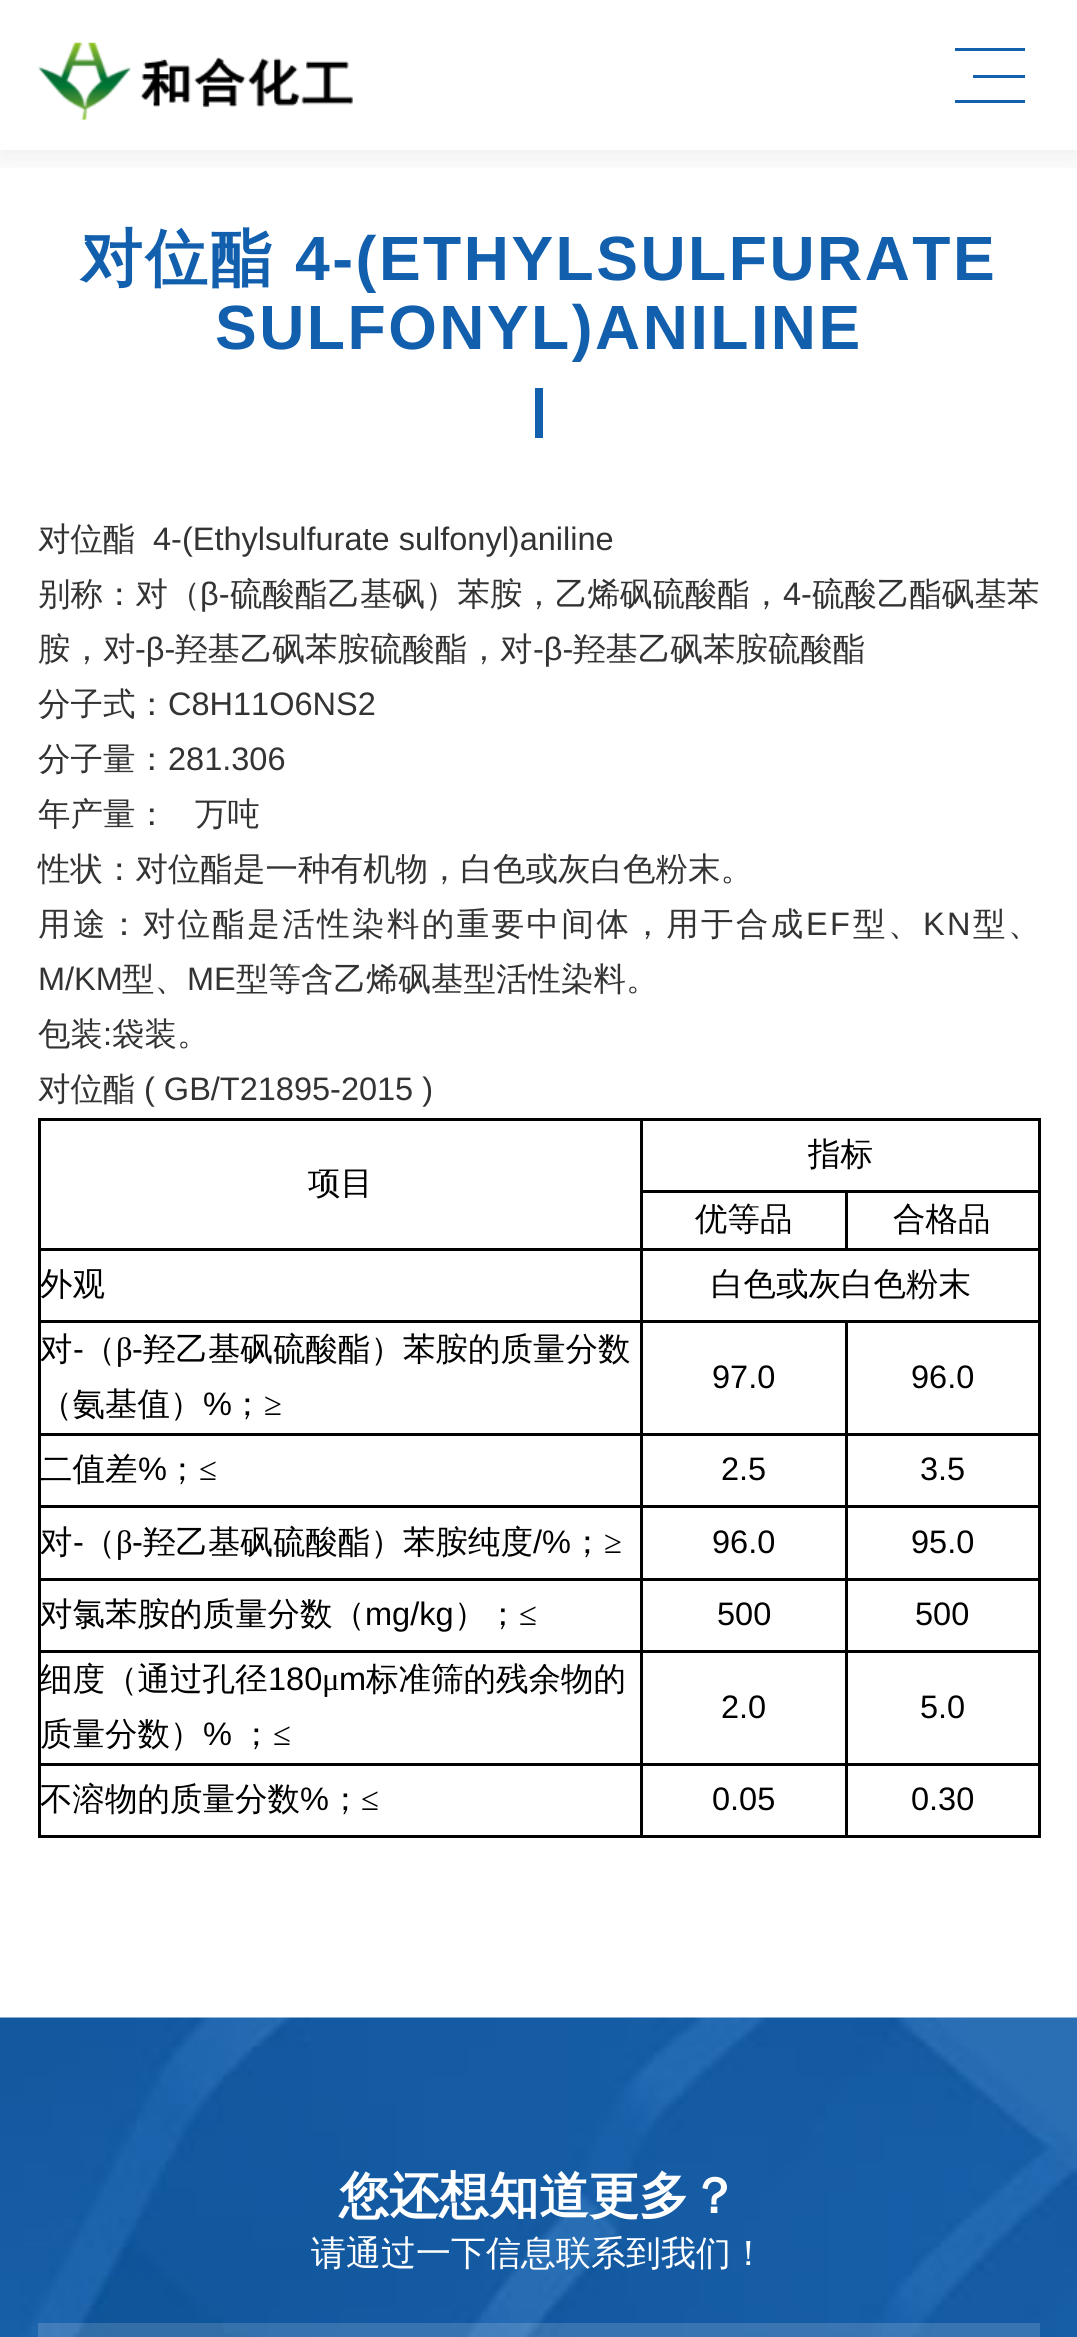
import math
import cairo


def use_color(cr, r, g, b):
  cr.set_source_rgb(r / 255, g / 255, b / 255)

def text(cr, x, y, s, family, size, color, bold=False, italic=False):
  cr.select_font_face(family, cairo.FONT_SLANT_ITALIC if italic else cairo.FONT_SLANT_NORMAL, cairo.FONT_WEIGHT_BOLD if bold else cairo.FONT_WEIGHT_NORMAL)
  cr.set_font_size(size)
  use_color(cr, *color)
  cr.move_to(x, y)
  cr.show_text(s)

def spaced_text(cr, x, y, s, letter, word):
  cr.move_to(x, y)
  for ch in s:
    cr.show_text(ch)
    cr.rel_move_to(letter + word * (ch == ' '), 0)

def box(cr, x, y, w, h, *color):
  use_color(cr, *color)
  cr.rectangle(x, y, w, h)
  cr.fill()

def round_rect(cr, x, y, w, h, r):
  cr.new_sub_path()
  for i, (u, v) in enumerate([(x + w - r, y + h - r), (x + r, y + h - r), (x + r, y + r), (x + w - r, y + r)]):
    cr.arc(u, v, r, i * math.pi / 2, (i + 1) * math.pi / 2)
  cr.close_path()

def shadow(cr, x, y, w, h, r, blur, alpha):
  cr.push_group_with_content(cairo.CONTENT_ALPHA)
  cr.set_operator(cairo.OPERATOR_SOURCE)
  for i in range(15, -16, -2):
    e = blur * i / 6
    if min(w, h) + 2 * e > 0:
      cr.set_source_rgba(0, 0, 0, alpha * math.erfc((i - 1) / 8.5) / 2)
      round_rect(cr, x - e, y - e, w + 2 * e, h + 2 * e, max(0, min(r + e + blur * .6, min(w, h) / 2 + e)))
      cr.fill()
  cr.mask(cr.pop_group())

def picture(cr, path, x, y, w, h):
  cr.save()
  cr.set_source_surface(cairo.ImageSurface.create_from_png(path), x, y)
  cr.rectangle(x, y, w, h)
  cr.fill()
  cr.restore()

def draw(cr):
  use_color(cr, 255, 255, 255)
  cr.paint()
  cr.save()
  cr.rectangle(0, 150, 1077, 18)
  cr.clip()
  use_color(cr, 0, 0, 0)
  shadow(cr, 0, 0, 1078, 150, 0, 21, 0.1)
  cr.restore()
  picture(cr, "img_01.png", 38, 42, 315, 78)
  box(cr, 973, 75, 52, 3, 17, 95, 173)
  box(cr, 955, 48, 70, 3, 17, 95, 173)
  box(cr, 955, 100, 70, 3, 17, 95, 173)
  box(cr, 535, 388, 8, 50, 17, 95, 173)
  box(cr, 640, 1118, 400, 3, 0, 0, 0)
  box(cr, 845, 1190, 195, 3, 0, 0, 0)
  box(cr, 640, 1248, 400, 3, 0, 0, 0)
  box(cr, 845, 1320, 195, 3, 0, 0, 0)
  box(cr, 845, 1433, 195, 3, 0, 0, 0)
  box(cr, 845, 1505, 195, 3, 0, 0, 0)
  box(cr, 845, 1578, 195, 3, 0, 0, 0)
  box(cr, 845, 1650, 195, 3, 0, 0, 0)
  box(cr, 845, 1763, 195, 3, 0, 0, 0)
  box(cr, 1038, 1763, 3, 75, 0, 0, 0)
  box(cr, 1038, 1650, 3, 115, 0, 0, 0)
  box(cr, 1038, 1578, 3, 75, 0, 0, 0)
  box(cr, 1038, 1505, 3, 75, 0, 0, 0)
  box(cr, 1038, 1433, 3, 75, 0, 0, 0)
  box(cr, 1038, 1320, 3, 115, 0, 0, 0)
  box(cr, 1038, 1248, 3, 75, 0, 0, 0)
  box(cr, 1038, 1190, 3, 60, 0, 0, 0)
  box(cr, 1038, 1118, 3, 75, 0, 0, 0)
  box(cr, 845, 1190, 3, 60, 0, 0, 0)
  box(cr, 640, 1190, 208, 3, 0, 0, 0)
  box(cr, 845, 1835, 195, 3, 0, 0, 0)
  box(cr, 845, 1763, 3, 75, 0, 0, 0)
  box(cr, 640, 1763, 208, 3, 0, 0, 0)
  box(cr, 845, 1650, 3, 115, 0, 0, 0)
  box(cr, 640, 1650, 208, 3, 0, 0, 0)
  box(cr, 845, 1578, 3, 75, 0, 0, 0)
  box(cr, 640, 1578, 208, 3, 0, 0, 0)
  box(cr, 845, 1505, 3, 75, 0, 0, 0)
  box(cr, 640, 1505, 208, 3, 0, 0, 0)
  box(cr, 845, 1433, 3, 75, 0, 0, 0)
  box(cr, 640, 1433, 208, 3, 0, 0, 0)
  box(cr, 845, 1320, 3, 115, 0, 0, 0)
  box(cr, 640, 1320, 208, 3, 0, 0, 0)
  box(cr, 640, 1835, 208, 3, 0, 0, 0)
  box(cr, 640, 1763, 3, 75, 0, 0, 0)
  box(cr, 38, 1763, 605, 3, 0, 0, 0)
  box(cr, 640, 1650, 3, 115, 0, 0, 0)
  box(cr, 38, 1650, 605, 3, 0, 0, 0)
  box(cr, 640, 1578, 3, 75, 0, 0, 0)
  box(cr, 38, 1578, 605, 3, 0, 0, 0)
  box(cr, 640, 1505, 3, 75, 0, 0, 0)
  box(cr, 38, 1505, 605, 3, 0, 0, 0)
  box(cr, 640, 1433, 3, 75, 0, 0, 0)
  box(cr, 38, 1433, 605, 3, 0, 0, 0)
  box(cr, 640, 1320, 3, 115, 0, 0, 0)
  box(cr, 38, 1320, 605, 3, 0, 0, 0)
  box(cr, 640, 1248, 3, 75, 0, 0, 0)
  box(cr, 38, 1248, 605, 3, 0, 0, 0)
  box(cr, 640, 1190, 3, 60, 0, 0, 0)
  box(cr, 640, 1118, 3, 75, 0, 0, 0)
  box(cr, 38, 1118, 605, 3, 0, 0, 0)
  box(cr, 38, 1835, 605, 3, 0, 0, 0)
  box(cr, 38, 1763, 3, 75, 0, 0, 0)
  box(cr, 38, 1650, 3, 115, 0, 0, 0)
  box(cr, 38, 1578, 3, 75, 0, 0, 0)
  box(cr, 38, 1505, 3, 75, 0, 0, 0)
  box(cr, 38, 1433, 3, 75, 0, 0, 0)
  box(cr, 38, 1320, 3, 115, 0, 0, 0)
  box(cr, 38, 1248, 3, 75, 0, 0, 0)
  box(cr, 38, 1118, 3, 132, 0, 0, 0)
  picture(cr, "img_02.png", 0, 2017, 1077, 320)
  cr.set_source_rgba(1, 1, 1, 0.15)
  cr.rectangle(38, 2323, 1002, 14)
  cr.fill()
  cr.select_font_face("WenQuanYi Zen Hei", cairo.FONT_SLANT_NORMAL, cairo.FONT_WEIGHT_BOLD)
  cr.set_font_size(62.5)
  use_color(cr, 17, 95, 173)
  spaced_text(cr, 80, 280, "对位酯", 2.5, 0)
  cr.select_font_face("Liberation Sans", cairo.FONT_SLANT_NORMAL, cairo.FONT_WEIGHT_BOLD)
  spaced_text(cr, 295, 280, "4-(ETHYLSULFURATE", 2.5, 0)
  spaced_text(cr, 215, 349, "SULFONYL)ANILINE", 2.5, 0)
  text(cr, 38, 550, "对位酯", "WenQuanYi Zen Hei Medium", 32.5, (51, 51, 51))
  text(cr, 153, 550, "4-(Ethylsulfurate sulfonyl)aniline", "Liberation Sans", 32.5, (51, 51, 51))
  text(cr, 38, 605, "别称：对（", "WenQuanYi Zen Hei Medium", 32.5, (51, 51, 51))
  text(cr, 200, 605, "β-", "Liberation Sans", 32.5, (51, 51, 51))
  text(cr, 230, 605, "硫酸酯乙基砜）苯胺，乙烯砜硫酸酯，", "WenQuanYi Zen Hei Medium", 32.5, (51, 51, 51))
  text(cr, 783, 605, "4-", "Liberation Sans", 32.5, (51, 51, 51))
  text(cr, 812, 605, "硫酸乙酯砜基苯", "WenQuanYi Zen Hei Medium", 32.5, (51, 51, 51))
  text(cr, 38, 660, "胺，对", "WenQuanYi Zen Hei Medium", 32.5, (51, 51, 51))
  text(cr, 135, 660, "-β-", "Liberation Sans", 32.5, (51, 51, 51))
  text(cr, 175, 660, "羟基乙砜苯胺硫酸酯，对", "WenQuanYi Zen Hei Medium", 32.5, (51, 51, 51))
  text(cr, 533, 660, "-β-", "Liberation Sans", 32.5, (51, 51, 51))
  text(cr, 573, 660, "羟基乙砜苯胺硫酸酯", "WenQuanYi Zen Hei Medium", 32.5, (51, 51, 51))
  text(cr, 38, 715, "分子式：", "WenQuanYi Zen Hei Medium", 32.5, (51, 51, 51))
  text(cr, 168, 715, "C8H11O6NS2", "Liberation Sans", 32.5, (51, 51, 51))
  text(cr, 38, 770, "分子量：", "WenQuanYi Zen Hei Medium", 32.5, (51, 51, 51))
  text(cr, 168, 770, "281.306", "Liberation Sans", 32.5, (51, 51, 51))
  text(cr, 38, 825, "年产量：", "WenQuanYi Zen Hei Medium", 32.5, (51, 51, 51))
  text(cr, 195, 825, "万吨", "WenQuanYi Zen Hei Medium", 32.5, (51, 51, 51))
  text(cr, 38, 880, "性状：对位酯是一种有机物，白色或灰白色粉末。", "WenQuanYi Zen Hei Medium", 32.5, (51, 51, 51))
  spaced_text(cr, 38, 935, "用途：对位酯是活性染料的重要中间体，用于合成", 2.4, 0)
  cr.select_font_face("Liberation Sans")
  spaced_text(cr, 806, 935, "EF", 2.4, 0)
  cr.select_font_face("WenQuanYi Zen Hei Medium")
  spaced_text(cr, 853, 935, "型、", 2.4, 0)
  cr.select_font_face("Liberation Sans")
  spaced_text(cr, 923, 935, "KN", 2.4, 0)
  cr.select_font_face("WenQuanYi Zen Hei Medium")
  spaced_text(cr, 973, 935, "型、", 2.4, 0)
  text(cr, 38, 990, "M/KM", "Liberation Sans", 32.5, (51, 51, 51))
  text(cr, 122, 990, "型、", "WenQuanYi Zen Hei Medium", 32.5, (51, 51, 51))
  text(cr, 187, 990, "ME", "Liberation Sans", 32.5, (51, 51, 51))
  text(cr, 236, 990, "型等含乙烯砜基型活性染料。", "WenQuanYi Zen Hei Medium", 32.5, (51, 51, 51))
  text(cr, 38, 1045, "包装", "WenQuanYi Zen Hei Medium", 32.5, (51, 51, 51))
  text(cr, 103, 1045, ":", "Liberation Sans", 32.5, (51, 51, 51))
  text(cr, 112, 1045, "袋装。", "WenQuanYi Zen Hei Medium", 32.5, (51, 51, 51))
  text(cr, 38, 1100, "对位酯", "WenQuanYi Zen Hei Medium", 32.5, (51, 51, 51))
  text(cr, 144, 1100, "( GB/T21895-2015 )", "Liberation Sans", 32.5, (51, 51, 51))
  text(cr, 808, 1165, "指标", "WenQuanYi Zen Hei Medium", 32.5, (0, 0, 0))
  text(cr, 308, 1194, "项目", "WenQuanYi Zen Hei Medium", 32.5, (0, 0, 0))
  text(cr, 695, 1230, "优等品", "WenQuanYi Zen Hei Medium", 32.5, (0, 0, 0))
  text(cr, 893, 1230, "合格品", "WenQuanYi Zen Hei Medium", 32.5, (0, 0, 0))
  text(cr, 40, 1295, "外观", "WenQuanYi Zen Hei Medium", 32.5, (0, 0, 0))
  text(cr, 711, 1295, "白色或灰白色粉末", "WenQuanYi Zen Hei Medium", 32.5, (0, 0, 0))
  text(cr, 40, 1360, "对", "WenQuanYi Zen Hei Medium", 32.5, (0, 0, 0))
  text(cr, 73, 1360, "-", "Liberation Sans", 32.5, (0, 0, 0))
  text(cr, 83, 1360, "（", "WenQuanYi Zen Hei Medium", 32.5, (0, 0, 0))
  text(cr, 116, 1360, "β", "Liberation Serif", 32.5, (0, 0, 0))
  text(cr, 132, 1360, "-", "Liberation Sans", 32.5, (0, 0, 0))
  text(cr, 143, 1360, "羟乙基砜硫酸酯）苯胺的质量分数", "WenQuanYi Zen Hei Medium", 32.5, (0, 0, 0))
  text(cr, 40, 1415, "（氨基值）", "WenQuanYi Zen Hei Medium", 32.5, (0, 0, 0))
  text(cr, 203, 1415, "%", "Liberation Sans", 32.5, (0, 0, 0))
  text(cr, 231, 1415, "；", "WenQuanYi Zen Hei Medium", 32.5, (0, 0, 0))
  text(cr, 264, 1415, "≥", "Liberation Serif", 32.5, (0, 0, 0))
  text(cr, 712, 1388, "97.0", "Liberation Sans", 32.5, (0, 0, 0))
  text(cr, 911, 1388, "96.0", "Liberation Sans", 32.5, (0, 0, 0))
  text(cr, 40, 1480, "二值差", "WenQuanYi Zen Hei Medium", 32.5, (0, 0, 0))
  text(cr, 138, 1480, "%", "Liberation Sans", 32.5, (0, 0, 0))
  text(cr, 166, 1480, "；", "WenQuanYi Zen Hei Medium", 32.5, (0, 0, 0))
  text(cr, 199, 1480, "≤", "Liberation Serif", 32.5, (0, 0, 0))
  text(cr, 721, 1480, "2.5", "Liberation Sans", 32.5, (0, 0, 0))
  text(cr, 920, 1480, "3.5", "Liberation Sans", 32.5, (0, 0, 0))
  text(cr, 40, 1553, "对", "WenQuanYi Zen Hei Medium", 32.5, (0, 0, 0))
  text(cr, 73, 1553, "-", "Liberation Sans", 32.5, (0, 0, 0))
  text(cr, 83, 1553, "（", "WenQuanYi Zen Hei Medium", 32.5, (0, 0, 0))
  text(cr, 116, 1553, "β", "Liberation Serif", 32.5, (0, 0, 0))
  text(cr, 132, 1553, "-", "Liberation Sans", 32.5, (0, 0, 0))
  text(cr, 143, 1553, "羟乙基砜硫酸酯）苯胺纯度", "WenQuanYi Zen Hei Medium", 32.5, (0, 0, 0))
  text(cr, 533, 1553, "/%", "Liberation Sans", 32.5, (0, 0, 0))
  text(cr, 571, 1553, "；", "WenQuanYi Zen Hei Medium", 32.5, (0, 0, 0))
  text(cr, 604, 1553, "≥", "Liberation Serif", 32.5, (0, 0, 0))
  text(cr, 712, 1553, "96.0", "Liberation Sans", 32.5, (0, 0, 0))
  text(cr, 911, 1553, "95.0", "Liberation Sans", 32.5, (0, 0, 0))
  text(cr, 40, 1625, "对氯苯胺的质量分数（", "WenQuanYi Zen Hei Medium", 32.5, (0, 0, 0))
  text(cr, 365, 1625, "mg/kg", "Liberation Sans", 32.5, (0, 0, 0))
  text(cr, 454, 1625, "）；", "WenQuanYi Zen Hei Medium", 32.5, (0, 0, 0))
  text(cr, 519, 1625, "≤", "Liberation Serif", 32.5, (0, 0, 0))
  text(cr, 717, 1625, "500", "Liberation Sans", 32.5, (0, 0, 0))
  text(cr, 915, 1625, "500", "Liberation Sans", 32.5, (0, 0, 0))
  text(cr, 40, 1690, "细度（通过孔径", "WenQuanYi Zen Hei Medium", 32.5, (0, 0, 0))
  text(cr, 268, 1690, "180", "Liberation Sans", 32.5, (0, 0, 0))
  text(cr, 322, 1690, "μ", "Liberation Serif", 32.5, (0, 0, 0))
  text(cr, 339, 1690, "m", "Liberation Sans", 32.5, (0, 0, 0))
  text(cr, 366, 1690, "标准筛的残余物的", "WenQuanYi Zen Hei Medium", 32.5, (0, 0, 0))
  text(cr, 40, 1745, "质量分数）", "WenQuanYi Zen Hei Medium", 32.5, (0, 0, 0))
  text(cr, 203, 1745, "%", "Liberation Sans", 32.5, (0, 0, 0))
  text(cr, 240, 1745, "；", "WenQuanYi Zen Hei Medium", 32.5, (0, 0, 0))
  text(cr, 273, 1745, "≤", "Liberation Serif", 32.5, (0, 0, 0))
  text(cr, 721, 1718, "2.0", "Liberation Sans", 32.5, (0, 0, 0))
  text(cr, 920, 1718, "5.0", "Liberation Sans", 32.5, (0, 0, 0))
  text(cr, 40, 1810, "不溶物的质量分数", "WenQuanYi Zen Hei Medium", 32.5, (0, 0, 0))
  text(cr, 300, 1810, "%", "Liberation Sans", 32.5, (0, 0, 0))
  text(cr, 329, 1810, "；", "WenQuanYi Zen Hei Medium", 32.5, (0, 0, 0))
  text(cr, 361, 1810, "≤", "Liberation Serif", 32.5, (0, 0, 0))
  text(cr, 712, 1810, "0.05", "Liberation Sans", 32.5, (0, 0, 0))
  text(cr, 911, 1810, "0.30", "Liberation Sans", 32.5, (0, 0, 0))
  text(cr, 339, 2213, "您还想知道更多？", "WenQuanYi Zen Hei", 50, (255, 255, 255), bold=True)
  text(cr, 311, 2265, "请通过一下信息联系到我们！", "WenQuanYi Zen Hei Medium", 35, (255, 255, 255))


surface = cairo.ImageSurface(cairo.FORMAT_RGB24, 1077, 2337)
cr = cairo.Context(surface)
options = cairo.FontOptions()
options.set_hint_metrics(cairo.HINT_METRICS_OFF)
options.set_hint_style(cairo.HINT_STYLE_NONE)
cr.set_font_options(options)
cr.set_miter_limit(4)
draw(cr)
surface.write_to_png("out.png")
